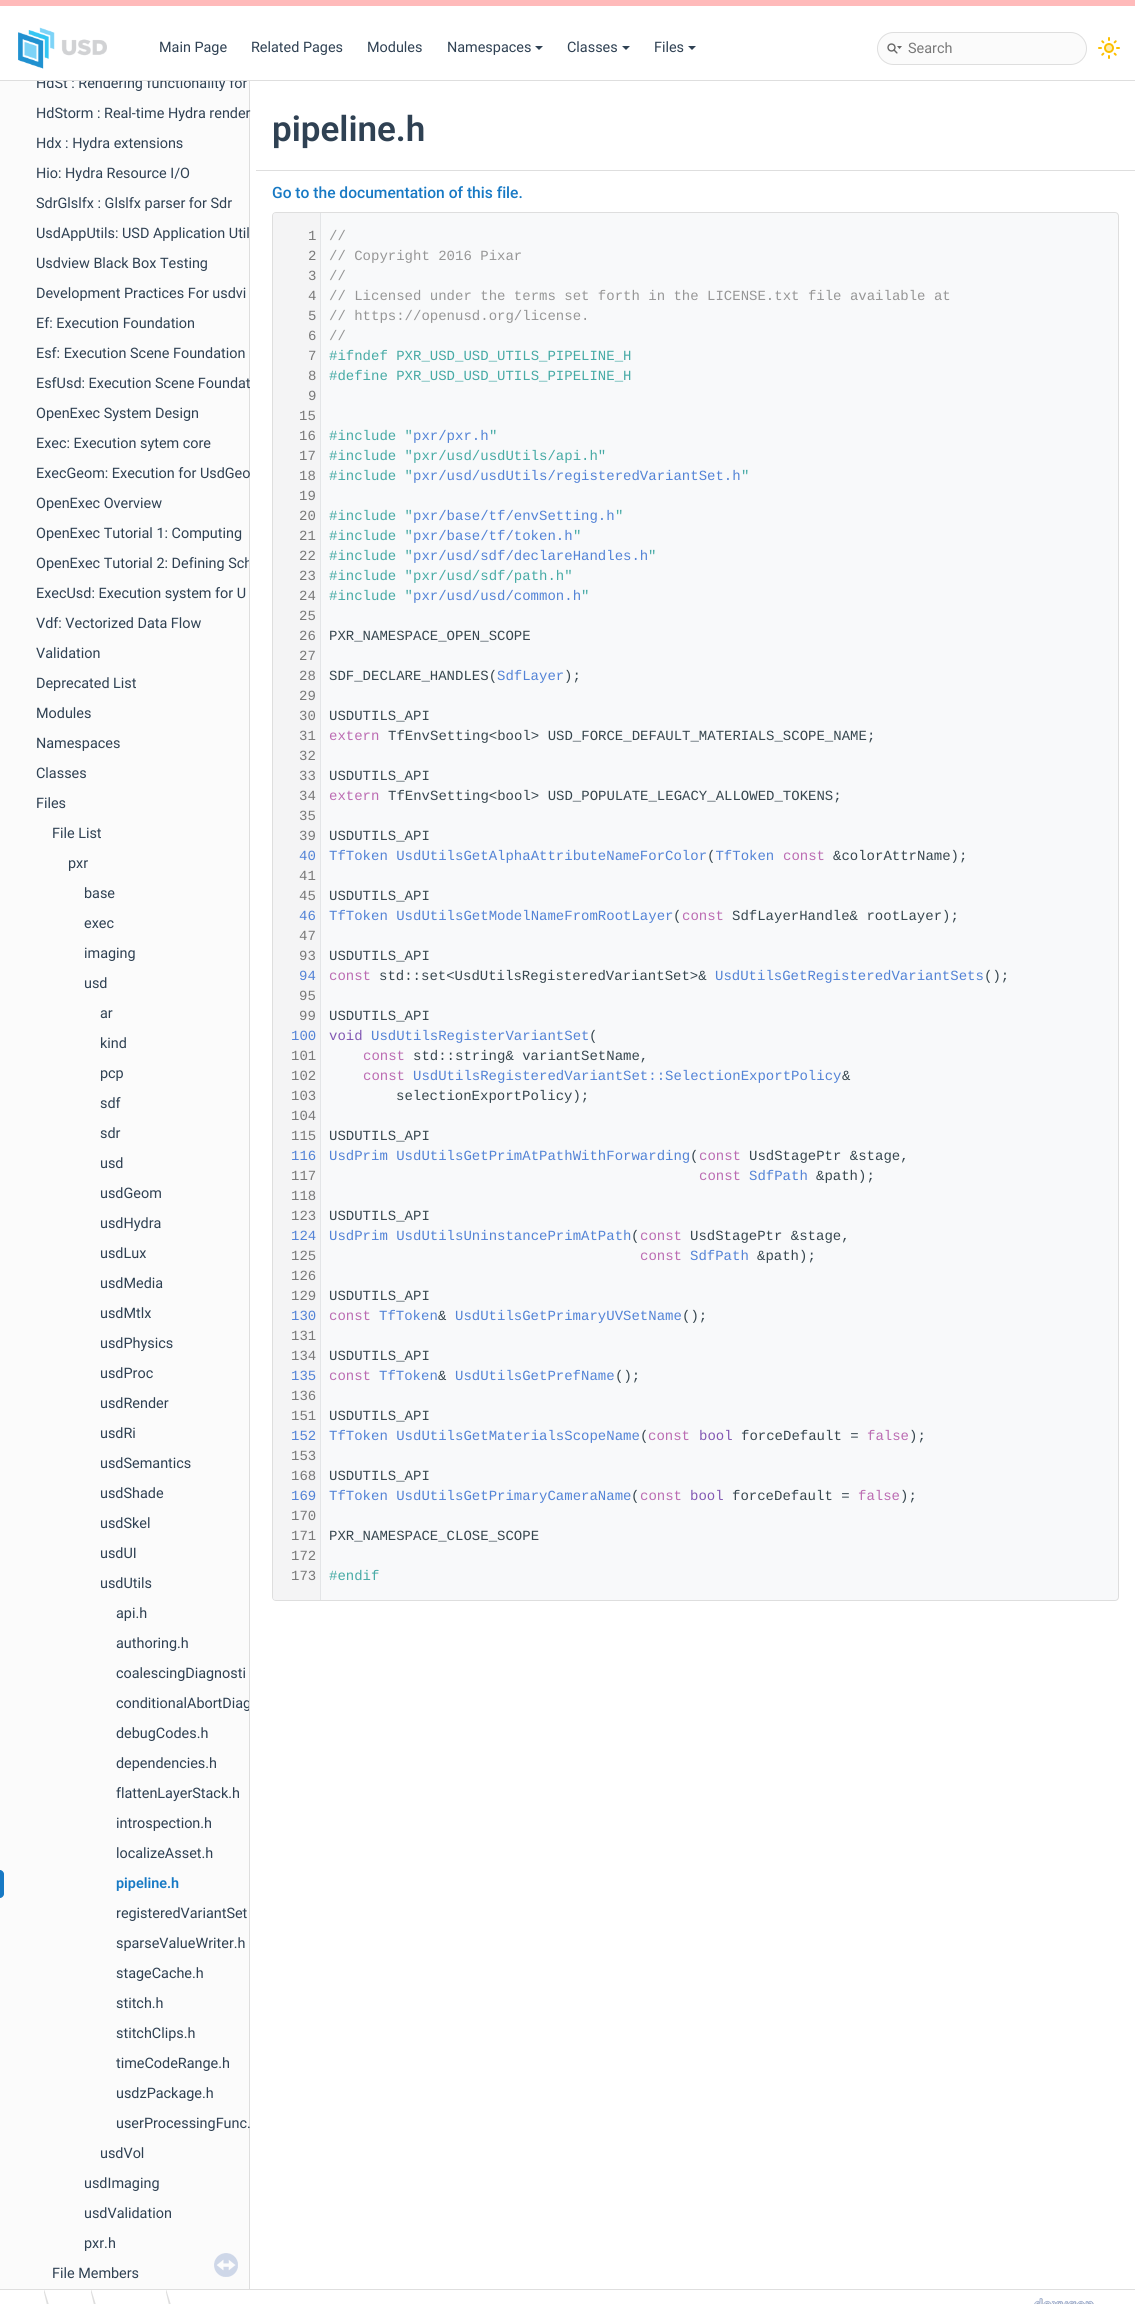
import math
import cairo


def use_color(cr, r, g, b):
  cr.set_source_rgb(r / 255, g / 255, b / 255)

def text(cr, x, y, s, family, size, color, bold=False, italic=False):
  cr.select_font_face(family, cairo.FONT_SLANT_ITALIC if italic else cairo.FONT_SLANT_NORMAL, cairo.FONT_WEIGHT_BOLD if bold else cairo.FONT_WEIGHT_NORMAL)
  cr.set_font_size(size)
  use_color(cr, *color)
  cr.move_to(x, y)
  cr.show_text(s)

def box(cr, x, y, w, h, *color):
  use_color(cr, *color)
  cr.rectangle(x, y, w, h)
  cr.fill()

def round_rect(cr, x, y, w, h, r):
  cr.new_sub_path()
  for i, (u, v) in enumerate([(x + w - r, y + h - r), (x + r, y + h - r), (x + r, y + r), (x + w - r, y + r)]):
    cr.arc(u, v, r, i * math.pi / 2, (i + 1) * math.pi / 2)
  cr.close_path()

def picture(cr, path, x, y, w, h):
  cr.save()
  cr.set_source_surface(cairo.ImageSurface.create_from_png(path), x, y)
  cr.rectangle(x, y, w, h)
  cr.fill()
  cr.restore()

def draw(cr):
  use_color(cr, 255, 255, 255)
  cr.paint()
  box(cr, 0, 0, 1135, 6, 255, 186, 186)
  box(cr, 0, 80, 1135, 1, 222, 222, 222)
  picture(cr, "img_01.png", 18, 27, 89, 42)
  use_color(cr, 47, 65, 83)
  cr.new_path()
  cr.move_to(535, 46)
  cr.line_to(543, 46)
  cr.line_to(539, 50)
  cr.close_path()
  cr.fill()
  cr.new_path()
  cr.move_to(622, 46)
  cr.line_to(630, 46)
  cr.line_to(626, 50)
  cr.close_path()
  cr.fill()
  cr.new_path()
  cr.move_to(688, 46)
  cr.line_to(696, 46)
  cr.line_to(692, 50)
  cr.close_path()
  cr.fill()
  use_color(cr, 251, 251, 251)
  round_rect(cr, 877.5, 32.5, 209, 32, 16)
  cr.fill_preserve()
  use_color(cr, 222, 222, 222)
  cr.set_line_width(1)
  cr.stroke()
  picture(cr, "img_02.png", 887, 43, 15, 11)
  picture(cr, "img_03.png", 1098, 37, 22, 22)
  box(cr, 0, 81, 249, 2208, 251, 251, 251)
  use_color(cr, 23, 121, 196)
  cr.new_path()
  cr.move_to(0, 1870)
  cr.curve_to(2, 1870, 4, 1872, 4, 1874)
  cr.line_to(4, 1894)
  cr.curve_to(4, 1896, 2, 1898, 0, 1898)
  cr.close_path()
  cr.fill()
  picture(cr, "img_04.png", 214, 2253, 24, 24)
  box(cr, 249, 81, 1, 2208, 222, 222, 222)
  box(cr, 256, 170, 879, 1, 222, 222, 222)
  use_color(cr, 248, 249, 250)
  round_rect(cr, 272.5, 212.5, 846, 1388, 3.5)
  cr.fill_preserve()
  use_color(cr, 222, 222, 222)
  cr.stroke()
  use_color(cr, 227, 229, 231)
  cr.set_fill_rule(cairo.FILL_RULE_EVEN_ODD)
  cr.new_path()
  cr.move_to(276, 213)
  cr.curve_to(274, 213, 273, 214, 273, 216)
  cr.line_to(273, 1597)
  cr.curve_to(273, 1599, 274, 1600, 276, 1600)
  cr.line_to(321, 1600)
  cr.line_to(321, 213)
  cr.close_path()
  cr.move_to(289, 226)
  cr.line_to(289, 246)
  cr.line_to(320, 246)
  cr.line_to(320, 226)
  cr.close_path()
  cr.fill()
  use_color(cr, 244, 244, 245)
  cr.set_fill_rule(cairo.FILL_RULE_WINDING)
  cr.new_path()
  cr.move_to(276, 213)
  cr.curve_to(274, 213, 273, 214, 273, 216)
  cr.line_to(273, 1597)
  cr.curve_to(273, 1599, 274, 1600, 276, 1600)
  cr.line_to(320, 1600)
  cr.line_to(320, 246)
  cr.line_to(289, 246)
  cr.line_to(289, 226)
  cr.line_to(320, 226)
  cr.line_to(320, 213)
  cr.close_path()
  cr.fill()
  box(cr, 289, 226, 31, 20, 244, 244, 245)
  box(cr, 0, 2289, 1135, 1, 222, 222, 222)
  cr.new_path()
  cr.move_to(44, 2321)
  cr.line_to(44, 2289)
  cr.line_to(49, 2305)
  cr.close_path()
  cr.move_to(91, 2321)
  cr.line_to(91, 2289)
  cr.line_to(96, 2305)
  cr.close_path()
  cr.fill()
  cr.save()
  cr.rectangle(0, 2290, 1135, 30)
  cr.clip()
  use_color(cr, 255, 255, 255)
  cr.new_path()
  cr.move_to(42, 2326)
  cr.line_to(42, 2284)
  cr.line_to(47, 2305)
  cr.close_path()
  cr.move_to(89, 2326)
  cr.line_to(89, 2284)
  cr.line_to(94, 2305)
  cr.close_path()
  cr.fill()
  cr.restore()
  cr.new_path()
  cr.move_to(166, 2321)
  cr.line_to(166, 2289)
  cr.line_to(171, 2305)
  cr.close_path()
  cr.fill()
  cr.save()
  cr.rectangle(0, 2290, 1135, 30)
  cr.clip()
  use_color(cr, 255, 255, 255)
  cr.new_path()
  cr.move_to(164, 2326)
  cr.line_to(164, 2284)
  cr.line_to(169, 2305)
  cr.close_path()
  cr.fill()
  cr.restore()
  picture(cr, "img_05.png", 1034, 2298, 60, 6)
  text(cr, 159, 52, "Main Page", "Roboto", 14.4, (47, 65, 83))
  text(cr, 251, 52, "Related Pages", "Roboto", 14.4, (47, 65, 83))
  text(cr, 367, 52, "Modules", "Roboto", 14.4, (47, 65, 83))
  text(cr, 447, 52, "Namespaces", "Roboto", 14.4, (47, 65, 83))
  text(cr, 567, 52, "Classes", "Roboto", 14.4, (47, 65, 83))
  text(cr, 654, 52, "Files", "Roboto", 14.4, (47, 65, 83))
  text(cr, 908, 53, "Search", "Roboto", 14.4, (121, 121, 121))
  cr.save()
  cr.rectangle(0, 81, 249, 2208)
  cr.clip()
  text(cr, 36, 88, "HdSt : Rendering functionality for", "Roboto", 14.4, (47, 65, 83))
  cr.restore()
  text(cr, 36, 118, "HdStorm : Real-time Hydra render", "Roboto", 14.4, (47, 65, 83))
  text(cr, 36, 148, "Hdx : Hydra extensions", "Roboto", 14.4, (47, 65, 83))
  text(cr, 36, 178, "Hio: Hydra Resource I/O", "Roboto", 14.4, (47, 65, 83))
  text(cr, 36, 208, "SdrGlslfx : Glslfx parser for Sdr", "Roboto", 14.4, (47, 65, 83))
  text(cr, 36, 238, "UsdAppUtils: USD Application Util", "Roboto", 14.4, (47, 65, 83))
  text(cr, 36, 268, "Usdview Black Box Testing", "Roboto", 14.4, (47, 65, 83))
  text(cr, 36, 298, "Development Practices For usdvi", "Roboto", 14.4, (47, 65, 83))
  text(cr, 36, 328, "Ef: Execution Foundation", "Roboto", 14.4, (47, 65, 83))
  text(cr, 36, 358, "Esf: Execution Scene Foundation", "Roboto", 14.4, (47, 65, 83))
  text(cr, 36, 388, "EsfUsd: Execution Scene Foundat", "Roboto", 14.4, (47, 65, 83))
  text(cr, 36, 418, "OpenExec System Design", "Roboto", 14.4, (47, 65, 83))
  text(cr, 36, 448, "Exec: Execution sytem core", "Roboto", 14.4, (47, 65, 83))
  text(cr, 36, 478, "ExecGeom: Execution for UsdGeo", "Roboto", 14.4, (47, 65, 83))
  text(cr, 36, 508, "OpenExec Overview", "Roboto", 14.4, (47, 65, 83))
  text(cr, 36, 538, "OpenExec Tutorial 1: Computing", "Roboto", 14.4, (47, 65, 83))
  cr.save()
  cr.rectangle(0, 81, 249, 2208)
  cr.clip()
  text(cr, 36, 568, "OpenExec Tutorial 2: Defining Sch", "Roboto", 14.4, (47, 65, 83))
  cr.restore()
  text(cr, 36, 598, "ExecUsd: Execution system for U", "Roboto", 14.4, (47, 65, 83))
  text(cr, 36, 628, "Vdf: Vectorized Data Flow", "Roboto", 14.4, (47, 65, 83))
  text(cr, 36, 658, "Validation", "Roboto", 14.4, (47, 65, 83))
  text(cr, 36, 688, "Deprecated List", "Roboto", 14.4, (47, 65, 83))
  text(cr, 36, 718, "Modules", "Roboto", 14.4, (47, 65, 83))
  text(cr, 36, 748, "Namespaces", "Roboto", 14.4, (47, 65, 83))
  text(cr, 36, 778, "Classes", "Roboto", 14.4, (47, 65, 83))
  text(cr, 36, 808, "Files", "Roboto", 14.4, (47, 65, 83))
  text(cr, 52, 838, "File List", "Roboto", 14.4, (47, 65, 83))
  text(cr, 68, 868, "pxr", "Roboto", 14.4, (47, 65, 83))
  text(cr, 84, 898, "base", "Roboto", 14.4, (47, 65, 83))
  text(cr, 84, 928, "exec", "Roboto", 14.4, (47, 65, 83))
  text(cr, 84, 958, "imaging", "Roboto", 14.4, (47, 65, 83))
  text(cr, 84, 988, "usd", "Roboto", 14.4, (47, 65, 83))
  text(cr, 100, 1018, "ar", "Roboto", 14.4, (47, 65, 83))
  text(cr, 100, 1048, "kind", "Roboto", 14.4, (47, 65, 83))
  text(cr, 100, 1078, "pcp", "Roboto", 14.4, (47, 65, 83))
  text(cr, 100, 1108, "sdf", "Roboto", 14.4, (47, 65, 83))
  text(cr, 100, 1138, "sdr", "Roboto", 14.4, (47, 65, 83))
  text(cr, 100, 1168, "usd", "Roboto", 14.4, (47, 65, 83))
  text(cr, 100, 1198, "usdGeom", "Roboto", 14.4, (47, 65, 83))
  text(cr, 100, 1228, "usdHydra", "Roboto", 14.4, (47, 65, 83))
  text(cr, 100, 1258, "usdLux", "Roboto", 14.4, (47, 65, 83))
  text(cr, 100, 1288, "usdMedia", "Roboto", 14.4, (47, 65, 83))
  text(cr, 100, 1318, "usdMtlx", "Roboto", 14.4, (47, 65, 83))
  text(cr, 100, 1348, "usdPhysics", "Roboto", 14.4, (47, 65, 83))
  text(cr, 100, 1378, "usdProc", "Roboto", 14.4, (47, 65, 83))
  text(cr, 100, 1408, "usdRender", "Roboto", 14.4, (47, 65, 83))
  text(cr, 100, 1438, "usdRi", "Roboto", 14.4, (47, 65, 83))
  text(cr, 100, 1468, "usdSemantics", "Roboto", 14.4, (47, 65, 83))
  text(cr, 100, 1498, "usdShade", "Roboto", 14.4, (47, 65, 83))
  text(cr, 100, 1528, "usdSkel", "Roboto", 14.4, (47, 65, 83))
  text(cr, 100, 1558, "usdUI", "Roboto", 14.4, (47, 65, 83))
  text(cr, 100, 1588, "usdUtils", "Roboto", 14.4, (47, 65, 83))
  text(cr, 116, 1618, "api.h", "Roboto", 14.4, (47, 65, 83))
  text(cr, 116, 1648, "authoring.h", "Roboto", 14.4, (47, 65, 83))
  text(cr, 116, 1678, "coalescingDiagnosti", "Roboto", 14.4, (47, 65, 83))
  cr.save()
  cr.rectangle(0, 81, 249, 2208)
  cr.clip()
  text(cr, 116, 1708, "conditionalAbortDiag", "Roboto", 14.4, (47, 65, 83))
  cr.restore()
  text(cr, 116, 1738, "debugCodes.h", "Roboto", 14.4, (47, 65, 83))
  text(cr, 116, 1768, "dependencies.h", "Roboto", 14.4, (47, 65, 83))
  text(cr, 116, 1798, "flattenLayerStack.h", "Roboto", 14.4, (47, 65, 83))
  text(cr, 116, 1828, "introspection.h", "Roboto", 14.4, (47, 65, 83))
  text(cr, 116, 1858, "localizeAsset.h", "Roboto", 14.4, (47, 65, 83))
  text(cr, 116, 1888, "pipeline.h", "Roboto SemiBold", 14.4, (23, 121, 196))
  text(cr, 116, 1918, "registeredVariantSet", "Roboto", 14.4, (47, 65, 83))
  text(cr, 116, 1948, "sparseValueWriter.h", "Roboto", 14.4, (47, 65, 83))
  text(cr, 116, 1978, "stageCache.h", "Roboto", 14.4, (47, 65, 83))
  text(cr, 116, 2008, "stitch.h", "Roboto", 14.4, (47, 65, 83))
  text(cr, 116, 2038, "stitchClips.h", "Roboto", 14.4, (47, 65, 83))
  text(cr, 116, 2068, "timeCodeRange.h", "Roboto", 14.4, (47, 65, 83))
  text(cr, 116, 2098, "usdzPackage.h", "Roboto", 14.4, (47, 65, 83))
  text(cr, 116, 2128, "userProcessingFunc.", "Roboto", 14.4, (47, 65, 83))
  text(cr, 100, 2158, "usdVol", "Roboto", 14.4, (47, 65, 83))
  text(cr, 84, 2188, "usdImaging", "Roboto", 14.4, (47, 65, 83))
  text(cr, 84, 2218, "usdValidation", "Roboto", 14.4, (47, 65, 83))
  text(cr, 84, 2248, "pxr.h", "Roboto", 14.4, (47, 65, 83))
  text(cr, 52, 2278, "File Members", "Roboto", 14.4, (47, 65, 83))
  text(cr, 272, 141, "pipeline.h", "Roboto SemiBold", 35, (47, 65, 83))
  text(cr, 272, 198, "Go to the documentation of this file.", "Roboto Medium", 15.6, (23, 121, 196))
  text(cr, 308, 240, "1", "Liberation Mono", 14, (121, 121, 121))
  text(cr, 329, 240, "//", "Liberation Mono", 14, (150, 150, 150))
  text(cr, 308, 260, "2", "Liberation Mono", 14, (121, 121, 121))
  text(cr, 329, 260, "// Copyright 2016 Pixar", "Liberation Mono", 14, (150, 150, 150))
  text(cr, 308, 280, "3", "Liberation Mono", 14, (121, 121, 121))
  text(cr, 329, 280, "//", "Liberation Mono", 14, (150, 150, 150))
  text(cr, 308, 300, "4", "Liberation Mono", 14, (121, 121, 121))
  text(cr, 329, 300, "// Licensed under the terms set forth in the LICENSE.txt file available at", "Liberation Mono", 14, (150, 150, 150))
  text(cr, 308, 320, "5", "Liberation Mono", 14, (121, 121, 121))
  text(cr, 329, 320, "// https://openusd.org/license.", "Liberation Mono", 14, (150, 150, 150))
  text(cr, 308, 340, "6", "Liberation Mono", 14, (121, 121, 121))
  text(cr, 329, 340, "//", "Liberation Mono", 14, (150, 150, 150))
  text(cr, 308, 360, "7", "Liberation Mono", 14, (121, 121, 121))
  text(cr, 329, 360, "#ifndef PXR_USD_USD_UTILS_PIPELINE_H", "Liberation Mono", 14, (70, 170, 165))
  text(cr, 308, 380, "8", "Liberation Mono", 14, (121, 121, 121))
  text(cr, 329, 380, "#define PXR_USD_USD_UTILS_PIPELINE_H", "Liberation Mono", 14, (70, 170, 165))
  text(cr, 308, 400, "9", "Liberation Mono", 14, (121, 121, 121))
  text(cr, 299, 420, "15", "Liberation Mono", 14, (121, 121, 121))
  text(cr, 299, 440, "16", "Liberation Mono", 14, (121, 121, 121))
  text(cr, 329, 440, "#include \"", "Liberation Mono", 14, (70, 170, 165))
  text(cr, 413, 440, "pxr/pxr.h", "Liberation Mono", 14, (83, 131, 214))
  text(cr, 489, 440, "\"", "Liberation Mono", 14, (70, 170, 165))
  text(cr, 299, 460, "17", "Liberation Mono", 14, (121, 121, 121))
  text(cr, 329, 460, "#include \"pxr/usd/usdUtils/api.h\"", "Liberation Mono", 14, (70, 170, 165))
  text(cr, 299, 480, "18", "Liberation Mono", 14, (121, 121, 121))
  text(cr, 329, 480, "#include \"", "Liberation Mono", 14, (70, 170, 165))
  text(cr, 413, 480, "pxr/usd/usdUtils/registeredVariantSet.h", "Liberation Mono", 14, (83, 131, 214))
  text(cr, 741, 480, "\"", "Liberation Mono", 14, (70, 170, 165))
  text(cr, 299, 500, "19", "Liberation Mono", 14, (121, 121, 121))
  text(cr, 299, 520, "20", "Liberation Mono", 14, (121, 121, 121))
  text(cr, 329, 520, "#include \"", "Liberation Mono", 14, (70, 170, 165))
  text(cr, 413, 520, "pxr/base/tf/envSetting.h", "Liberation Mono", 14, (83, 131, 214))
  text(cr, 615, 520, "\"", "Liberation Mono", 14, (70, 170, 165))
  text(cr, 299, 540, "21", "Liberation Mono", 14, (121, 121, 121))
  text(cr, 329, 540, "#include \"", "Liberation Mono", 14, (70, 170, 165))
  text(cr, 413, 540, "pxr/base/tf/token.h", "Liberation Mono", 14, (83, 131, 214))
  text(cr, 573, 540, "\"", "Liberation Mono", 14, (70, 170, 165))
  text(cr, 299, 560, "22", "Liberation Mono", 14, (121, 121, 121))
  text(cr, 329, 560, "#include \"", "Liberation Mono", 14, (70, 170, 165))
  text(cr, 413, 560, "pxr/usd/sdf/declareHandles.h", "Liberation Mono", 14, (83, 131, 214))
  text(cr, 648, 560, "\"", "Liberation Mono", 14, (70, 170, 165))
  text(cr, 299, 580, "23", "Liberation Mono", 14, (121, 121, 121))
  text(cr, 329, 580, "#include \"pxr/usd/sdf/path.h\"", "Liberation Mono", 14, (70, 170, 165))
  text(cr, 299, 600, "24", "Liberation Mono", 14, (121, 121, 121))
  text(cr, 329, 600, "#include \"", "Liberation Mono", 14, (70, 170, 165))
  text(cr, 413, 600, "pxr/usd/usd/common.h", "Liberation Mono", 14, (83, 131, 214))
  text(cr, 581, 600, "\"", "Liberation Mono", 14, (70, 170, 165))
  text(cr, 299, 620, "25", "Liberation Mono", 14, (121, 121, 121))
  text(cr, 299, 640, "26", "Liberation Mono", 14, (121, 121, 121))
  text(cr, 329, 640, "PXR_NAMESPACE_OPEN_SCOPE", "Liberation Mono", 14, (55, 71, 79))
  text(cr, 299, 660, "27", "Liberation Mono", 14, (121, 121, 121))
  text(cr, 299, 680, "28", "Liberation Mono", 14, (121, 121, 121))
  text(cr, 329, 680, "SDF_DECLARE_HANDLES(", "Liberation Mono", 14, (55, 71, 79))
  text(cr, 497, 680, "SdfLayer", "Liberation Mono", 14, (83, 131, 214))
  text(cr, 564, 680, ");", "Liberation Mono", 14, (55, 71, 79))
  text(cr, 299, 700, "29", "Liberation Mono", 14, (121, 121, 121))
  text(cr, 299, 720, "30", "Liberation Mono", 14, (121, 121, 121))
  text(cr, 329, 720, "USDUTILS_API", "Liberation Mono", 14, (55, 71, 79))
  text(cr, 299, 740, "31", "Liberation Mono", 14, (121, 121, 121))
  text(cr, 329, 740, "extern", "Liberation Mono", 14, (187, 107, 178))
  text(cr, 388, 740, "TfEnvSetting<bool> USD_FORCE_DEFAULT_MATERIALS_SCOPE_NAME;", "Liberation Mono", 14, (55, 71, 79))
  text(cr, 299, 760, "32", "Liberation Mono", 14, (121, 121, 121))
  text(cr, 299, 780, "33", "Liberation Mono", 14, (121, 121, 121))
  text(cr, 329, 780, "USDUTILS_API", "Liberation Mono", 14, (55, 71, 79))
  text(cr, 299, 800, "34", "Liberation Mono", 14, (121, 121, 121))
  text(cr, 329, 800, "extern", "Liberation Mono", 14, (187, 107, 178))
  text(cr, 388, 800, "TfEnvSetting<bool> USD_POPULATE_LEGACY_ALLOWED_TOKENS;", "Liberation Mono", 14, (55, 71, 79))
  text(cr, 299, 820, "35", "Liberation Mono", 14, (121, 121, 121))
  text(cr, 299, 840, "39", "Liberation Mono", 14, (121, 121, 121))
  text(cr, 329, 840, "USDUTILS_API", "Liberation Mono", 14, (55, 71, 79))
  text(cr, 329, 860, "TfToken UsdUtilsGetAlphaAttributeNameForColor TfToken", "Liberation Mono", 14, (83, 131, 214))
  text(cr, 299, 860, "40", "Liberation Mono", 14, (83, 131, 214))
  text(cr, 707, 860, "(", "Liberation Mono", 14, (55, 71, 79))
  text(cr, 783, 860, "const", "Liberation Mono", 14, (187, 107, 178))
  text(cr, 833, 860, "&colorAttrName);", "Liberation Mono", 14, (55, 71, 79))
  text(cr, 299, 880, "41", "Liberation Mono", 14, (121, 121, 121))
  text(cr, 299, 900, "45", "Liberation Mono", 14, (121, 121, 121))
  text(cr, 329, 900, "USDUTILS_API", "Liberation Mono", 14, (55, 71, 79))
  text(cr, 299, 920, "46", "Liberation Mono", 14, (83, 131, 214))
  text(cr, 329, 920, "TfToken UsdUtilsGetModelNameFromRootLayer", "Liberation Mono", 14, (83, 131, 214))
  text(cr, 673, 920, "(", "Liberation Mono", 14, (55, 71, 79))
  text(cr, 682, 920, "const", "Liberation Mono", 14, (187, 107, 178))
  text(cr, 732, 920, "SdfLayerHandle& rootLayer);", "Liberation Mono", 14, (55, 71, 79))
  text(cr, 299, 940, "47", "Liberation Mono", 14, (121, 121, 121))
  text(cr, 299, 960, "93", "Liberation Mono", 14, (121, 121, 121))
  text(cr, 329, 960, "USDUTILS_API", "Liberation Mono", 14, (55, 71, 79))
  text(cr, 299, 980, "94", "Liberation Mono", 14, (83, 131, 214))
  text(cr, 329, 980, "const", "Liberation Mono", 14, (187, 107, 178))
  text(cr, 379, 980, "std::set<UsdUtilsRegisteredVariantSet>&", "Liberation Mono", 14, (55, 71, 79))
  text(cr, 715, 980, "UsdUtilsGetRegisteredVariantSets", "Liberation Mono", 14, (83, 131, 214))
  text(cr, 984, 980, "();", "Liberation Mono", 14, (55, 71, 79))
  text(cr, 299, 1000, "95", "Liberation Mono", 14, (121, 121, 121))
  text(cr, 299, 1020, "99", "Liberation Mono", 14, (121, 121, 121))
  text(cr, 329, 1020, "USDUTILS_API", "Liberation Mono", 14, (55, 71, 79))
  text(cr, 291, 1040, "100", "Liberation Mono", 14, (83, 131, 214))
  text(cr, 329, 1040, "void", "Liberation Mono", 14, (130, 88, 179))
  text(cr, 371, 1040, "UsdUtilsRegisterVariantSet", "Liberation Mono", 14, (83, 131, 214))
  text(cr, 589, 1040, "(", "Liberation Mono", 14, (55, 71, 79))
  text(cr, 291, 1060, "101", "Liberation Mono", 14, (121, 121, 121))
  text(cr, 363, 1060, "const", "Liberation Mono", 14, (187, 107, 178))
  text(cr, 413, 1060, "std::string& variantSetName,", "Liberation Mono", 14, (55, 71, 79))
  text(cr, 291, 1080, "102", "Liberation Mono", 14, (121, 121, 121))
  text(cr, 363, 1080, "const", "Liberation Mono", 14, (187, 107, 178))
  text(cr, 413, 1080, "UsdUtilsRegisteredVariantSet::SelectionExportPolicy", "Liberation Mono", 14, (83, 131, 214))
  text(cr, 842, 1080, "&", "Liberation Mono", 14, (55, 71, 79))
  text(cr, 291, 1100, "103", "Liberation Mono", 14, (121, 121, 121))
  text(cr, 396, 1100, "selectionExportPolicy);", "Liberation Mono", 14, (55, 71, 79))
  text(cr, 291, 1120, "104", "Liberation Mono", 14, (121, 121, 121))
  text(cr, 291, 1140, "115", "Liberation Mono", 14, (121, 121, 121))
  text(cr, 329, 1140, "USDUTILS_API", "Liberation Mono", 14, (55, 71, 79))
  text(cr, 291, 1160, "116", "Liberation Mono", 14, (83, 131, 214))
  text(cr, 329, 1160, "UsdPrim UsdUtilsGetPrimAtPathWithForwarding", "Liberation Mono", 14, (83, 131, 214))
  text(cr, 690, 1160, "(", "Liberation Mono", 14, (55, 71, 79))
  text(cr, 699, 1160, "const", "Liberation Mono", 14, (187, 107, 178))
  text(cr, 749, 1160, "UsdStagePtr &stage,", "Liberation Mono", 14, (55, 71, 79))
  text(cr, 291, 1180, "117", "Liberation Mono", 14, (121, 121, 121))
  text(cr, 699, 1180, "const", "Liberation Mono", 14, (187, 107, 178))
  text(cr, 749, 1180, "SdfPath", "Liberation Mono", 14, (83, 131, 214))
  text(cr, 816, 1180, "&path);", "Liberation Mono", 14, (55, 71, 79))
  text(cr, 291, 1200, "118", "Liberation Mono", 14, (121, 121, 121))
  text(cr, 291, 1220, "123", "Liberation Mono", 14, (121, 121, 121))
  text(cr, 329, 1220, "USDUTILS_API", "Liberation Mono", 14, (55, 71, 79))
  text(cr, 291, 1240, "124", "Liberation Mono", 14, (83, 131, 214))
  text(cr, 329, 1240, "UsdPrim UsdUtilsUninstancePrimAtPath", "Liberation Mono", 14, (83, 131, 214))
  text(cr, 631, 1240, "(", "Liberation Mono", 14, (55, 71, 79))
  text(cr, 640, 1240, "const", "Liberation Mono", 14, (187, 107, 178))
  text(cr, 690, 1240, "UsdStagePtr &stage,", "Liberation Mono", 14, (55, 71, 79))
  text(cr, 291, 1260, "125", "Liberation Mono", 14, (121, 121, 121))
  text(cr, 640, 1260, "const", "Liberation Mono", 14, (187, 107, 178))
  text(cr, 690, 1260, "SdfPath", "Liberation Mono", 14, (83, 131, 214))
  text(cr, 757, 1260, "&path);", "Liberation Mono", 14, (55, 71, 79))
  text(cr, 291, 1280, "126", "Liberation Mono", 14, (121, 121, 121))
  text(cr, 291, 1300, "129", "Liberation Mono", 14, (121, 121, 121))
  text(cr, 329, 1300, "USDUTILS_API", "Liberation Mono", 14, (55, 71, 79))
  text(cr, 291, 1320, "130", "Liberation Mono", 14, (83, 131, 214))
  text(cr, 329, 1320, "const", "Liberation Mono", 14, (187, 107, 178))
  text(cr, 379, 1320, "TfToken", "Liberation Mono", 14, (83, 131, 214))
  text(cr, 438, 1320, "&", "Liberation Mono", 14, (55, 71, 79))
  text(cr, 455, 1320, "UsdUtilsGetPrimaryUVSetName", "Liberation Mono", 14, (83, 131, 214))
  text(cr, 682, 1320, "();", "Liberation Mono", 14, (55, 71, 79))
  text(cr, 291, 1340, "131", "Liberation Mono", 14, (121, 121, 121))
  text(cr, 291, 1360, "134", "Liberation Mono", 14, (121, 121, 121))
  text(cr, 329, 1360, "USDUTILS_API", "Liberation Mono", 14, (55, 71, 79))
  text(cr, 291, 1380, "135", "Liberation Mono", 14, (83, 131, 214))
  text(cr, 329, 1380, "const", "Liberation Mono", 14, (187, 107, 178))
  text(cr, 379, 1380, "TfToken", "Liberation Mono", 14, (83, 131, 214))
  text(cr, 438, 1380, "&", "Liberation Mono", 14, (55, 71, 79))
  text(cr, 455, 1380, "UsdUtilsGetPrefName", "Liberation Mono", 14, (83, 131, 214))
  text(cr, 615, 1380, "();", "Liberation Mono", 14, (55, 71, 79))
  text(cr, 291, 1400, "136", "Liberation Mono", 14, (121, 121, 121))
  text(cr, 291, 1420, "151", "Liberation Mono", 14, (121, 121, 121))
  text(cr, 329, 1420, "USDUTILS_API", "Liberation Mono", 14, (55, 71, 79))
  text(cr, 291, 1440, "152", "Liberation Mono", 14, (83, 131, 214))
  text(cr, 329, 1440, "TfToken UsdUtilsGetMaterialsScopeName", "Liberation Mono", 14, (83, 131, 214))
  text(cr, 640, 1440, "(", "Liberation Mono", 14, (55, 71, 79))
  text(cr, 648, 1440, "const", "Liberation Mono", 14, (187, 107, 178))
  text(cr, 699, 1440, "bool", "Liberation Mono", 14, (130, 88, 179))
  text(cr, 741, 1440, "forceDefault =", "Liberation Mono", 14, (55, 71, 79))
  text(cr, 867, 1440, "false", "Liberation Mono", 14, (187, 107, 178))
  text(cr, 909, 1440, ");", "Liberation Mono", 14, (55, 71, 79))
  text(cr, 291, 1460, "153", "Liberation Mono", 14, (121, 121, 121))
  text(cr, 291, 1480, "168", "Liberation Mono", 14, (121, 121, 121))
  text(cr, 329, 1480, "USDUTILS_API", "Liberation Mono", 14, (55, 71, 79))
  text(cr, 291, 1500, "169", "Liberation Mono", 14, (83, 131, 214))
  text(cr, 329, 1500, "TfToken UsdUtilsGetPrimaryCameraName", "Liberation Mono", 14, (83, 131, 214))
  text(cr, 631, 1500, "(", "Liberation Mono", 14, (55, 71, 79))
  text(cr, 640, 1500, "const", "Liberation Mono", 14, (187, 107, 178))
  text(cr, 690, 1500, "bool", "Liberation Mono", 14, (130, 88, 179))
  text(cr, 732, 1500, "forceDefault =", "Liberation Mono", 14, (55, 71, 79))
  text(cr, 858, 1500, "false", "Liberation Mono", 14, (187, 107, 178))
  text(cr, 900, 1500, ");", "Liberation Mono", 14, (55, 71, 79))
  text(cr, 291, 1520, "170", "Liberation Mono", 14, (121, 121, 121))
  text(cr, 291, 1540, "171", "Liberation Mono", 14, (121, 121, 121))
  text(cr, 329, 1540, "PXR_NAMESPACE_CLOSE_SCOPE", "Liberation Mono", 14, (55, 71, 79))
  text(cr, 291, 1560, "172", "Liberation Mono", 14, (121, 121, 121))
  text(cr, 291, 1580, "173", "Liberation Mono", 14, (121, 121, 121))
  text(cr, 329, 1580, "#endif", "Liberation Mono", 14, (70, 170, 165))


surface = cairo.ImageSurface(cairo.FORMAT_RGB24, 1135, 2304)
cr = cairo.Context(surface)
options = cairo.FontOptions()
options.set_hint_metrics(cairo.HINT_METRICS_OFF)
options.set_hint_style(cairo.HINT_STYLE_NONE)
cr.set_font_options(options)
cr.set_miter_limit(4)
draw(cr)
surface.write_to_png("out.png")
